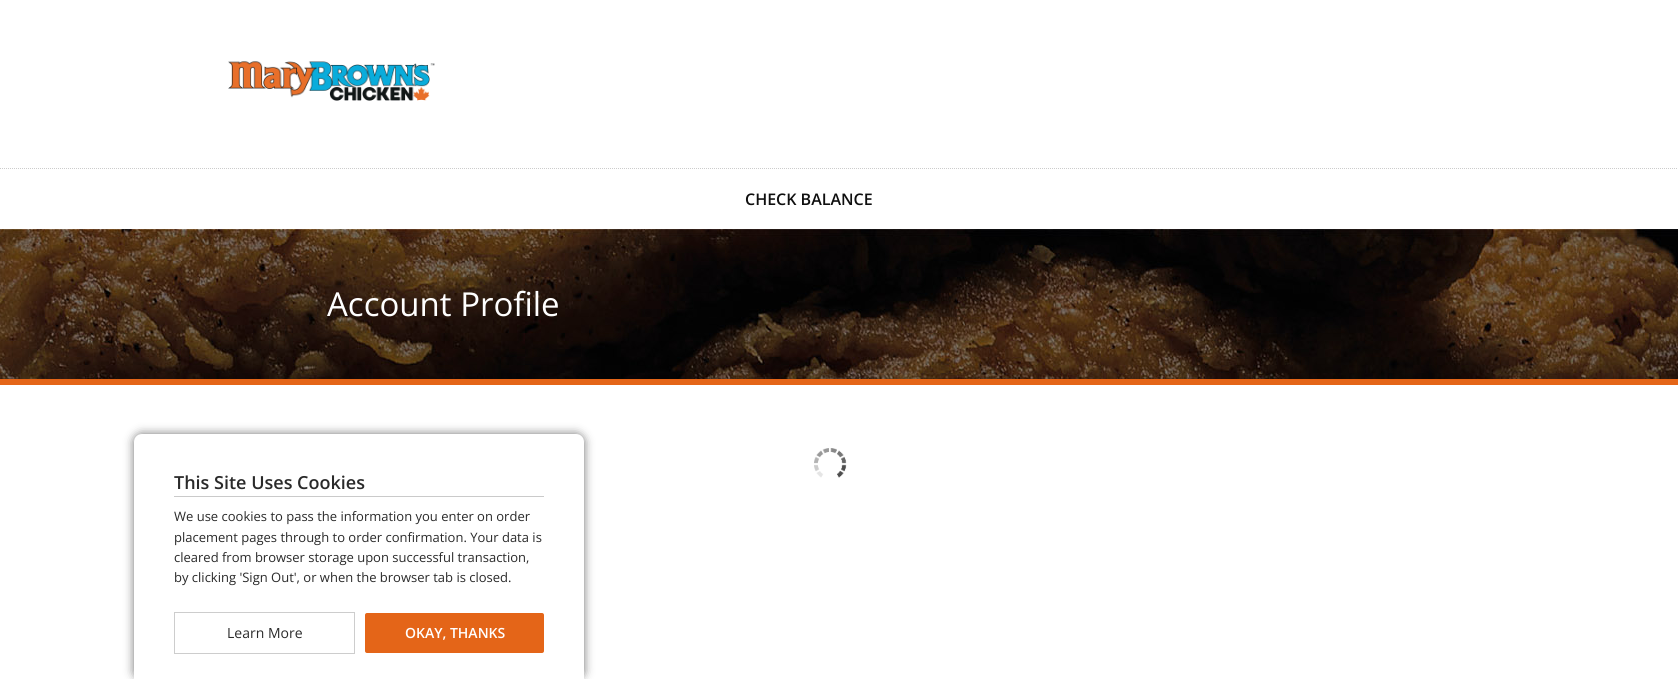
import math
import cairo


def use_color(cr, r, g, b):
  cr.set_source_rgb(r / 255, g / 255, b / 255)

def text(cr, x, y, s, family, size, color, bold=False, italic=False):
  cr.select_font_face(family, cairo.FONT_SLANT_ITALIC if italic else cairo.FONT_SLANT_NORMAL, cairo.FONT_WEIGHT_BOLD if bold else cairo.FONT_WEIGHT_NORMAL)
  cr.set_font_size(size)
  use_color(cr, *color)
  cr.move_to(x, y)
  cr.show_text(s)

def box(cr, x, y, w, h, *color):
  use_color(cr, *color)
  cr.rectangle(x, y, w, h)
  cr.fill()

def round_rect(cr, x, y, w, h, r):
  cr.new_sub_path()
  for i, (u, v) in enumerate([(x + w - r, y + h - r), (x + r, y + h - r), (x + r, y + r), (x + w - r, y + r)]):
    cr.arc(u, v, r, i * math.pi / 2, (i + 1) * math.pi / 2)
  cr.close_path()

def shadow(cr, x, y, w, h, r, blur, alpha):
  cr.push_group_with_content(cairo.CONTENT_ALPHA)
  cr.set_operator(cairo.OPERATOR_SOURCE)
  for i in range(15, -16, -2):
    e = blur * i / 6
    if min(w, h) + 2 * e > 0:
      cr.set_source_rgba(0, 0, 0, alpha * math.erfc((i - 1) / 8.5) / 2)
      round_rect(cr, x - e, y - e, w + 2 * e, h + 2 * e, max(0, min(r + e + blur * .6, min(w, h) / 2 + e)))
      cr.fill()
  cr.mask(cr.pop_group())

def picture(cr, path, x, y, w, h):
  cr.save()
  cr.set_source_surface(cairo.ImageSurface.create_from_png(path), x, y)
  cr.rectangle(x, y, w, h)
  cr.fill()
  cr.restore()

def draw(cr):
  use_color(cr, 255, 255, 255)
  cr.paint()
  picture(cr, "img_01.png", 228, 61, 207, 40)
  cr.new_path()
  cr.move_to(0, 168.5)
  cr.line_to(1678, 168.5)
  use_color(cr, 204, 204, 204)
  cr.set_line_width(1)
  cr.set_dash([1, 1])
  cr.stroke()
  picture(cr, "img_02.png", 0, 229, 1678, 150)
  box(cr, 0, 379, 1678, 6, 228, 101, 24)
  picture(cr, "img_03.png", 814, 448, 33, 30)
  use_color(cr, 0, 0, 0)
  shadow(cr, 134, 434, 450, 245, 8, 5, 0.56)
  use_color(cr, 255, 255, 255)
  cr.new_path()
  cr.move_to(142, 434)
  cr.line_to(576, 434)
  cr.curve_to(580.5, 434, 584, 437.5, 584, 442)
  cr.line_to(584, 679)
  cr.line_to(134, 679)
  cr.line_to(134, 442)
  cr.curve_to(134, 437.5, 137.5, 434, 142, 434)
  cr.close_path()
  cr.fill()
  box(cr, 174, 496, 370, 1, 202, 202, 202)
  cr.rectangle(174.5, 612.5, 180, 41)
  use_color(cr, 205, 205, 205)
  cr.set_dash([])
  cr.stroke()
  use_color(cr, 228, 101, 24)
  round_rect(cr, 365, 613, 179, 40, 2)
  cr.fill()
  text(cr, 745, 205, "CHECK BALANCE", "Open Sans SemiBold", 16, (15, 15, 15))
  text(cr, 327, 316, "Account Profile", "Open Sans", 33, (255, 255, 255))
  text(cr, 174, 489, "This Site Uses Cookies", "Open Sans SemiBold", 18, (42, 42, 42))
  text(cr, 174, 521, "We use cookies to pass the information you enter on order", "Open Sans", 13, (42, 42, 42))
  text(cr, 174, 542, "placement pages through to order confirmation. Your data is", "Open Sans", 13, (42, 42, 42))
  text(cr, 174, 562, "cleared from browser storage upon successful transaction,", "Open Sans", 13, (42, 42, 42))
  text(cr, 174, 582, "by clicking 'Sign Out', or when the browser tab is closed.", "Open Sans", 13, (42, 42, 42))
  text(cr, 227, 638, "Learn More", "Open Sans", 14, (42, 42, 42))
  text(cr, 405, 638, "OKAY, THANKS", "Open Sans SemiBold", 14, (255, 255, 255))


surface = cairo.ImageSurface(cairo.FORMAT_RGB24, 1678, 679)
cr = cairo.Context(surface)
options = cairo.FontOptions()
options.set_hint_metrics(cairo.HINT_METRICS_OFF)
options.set_hint_style(cairo.HINT_STYLE_NONE)
cr.set_font_options(options)
cr.set_miter_limit(4)
draw(cr)
surface.write_to_png("out.png")
